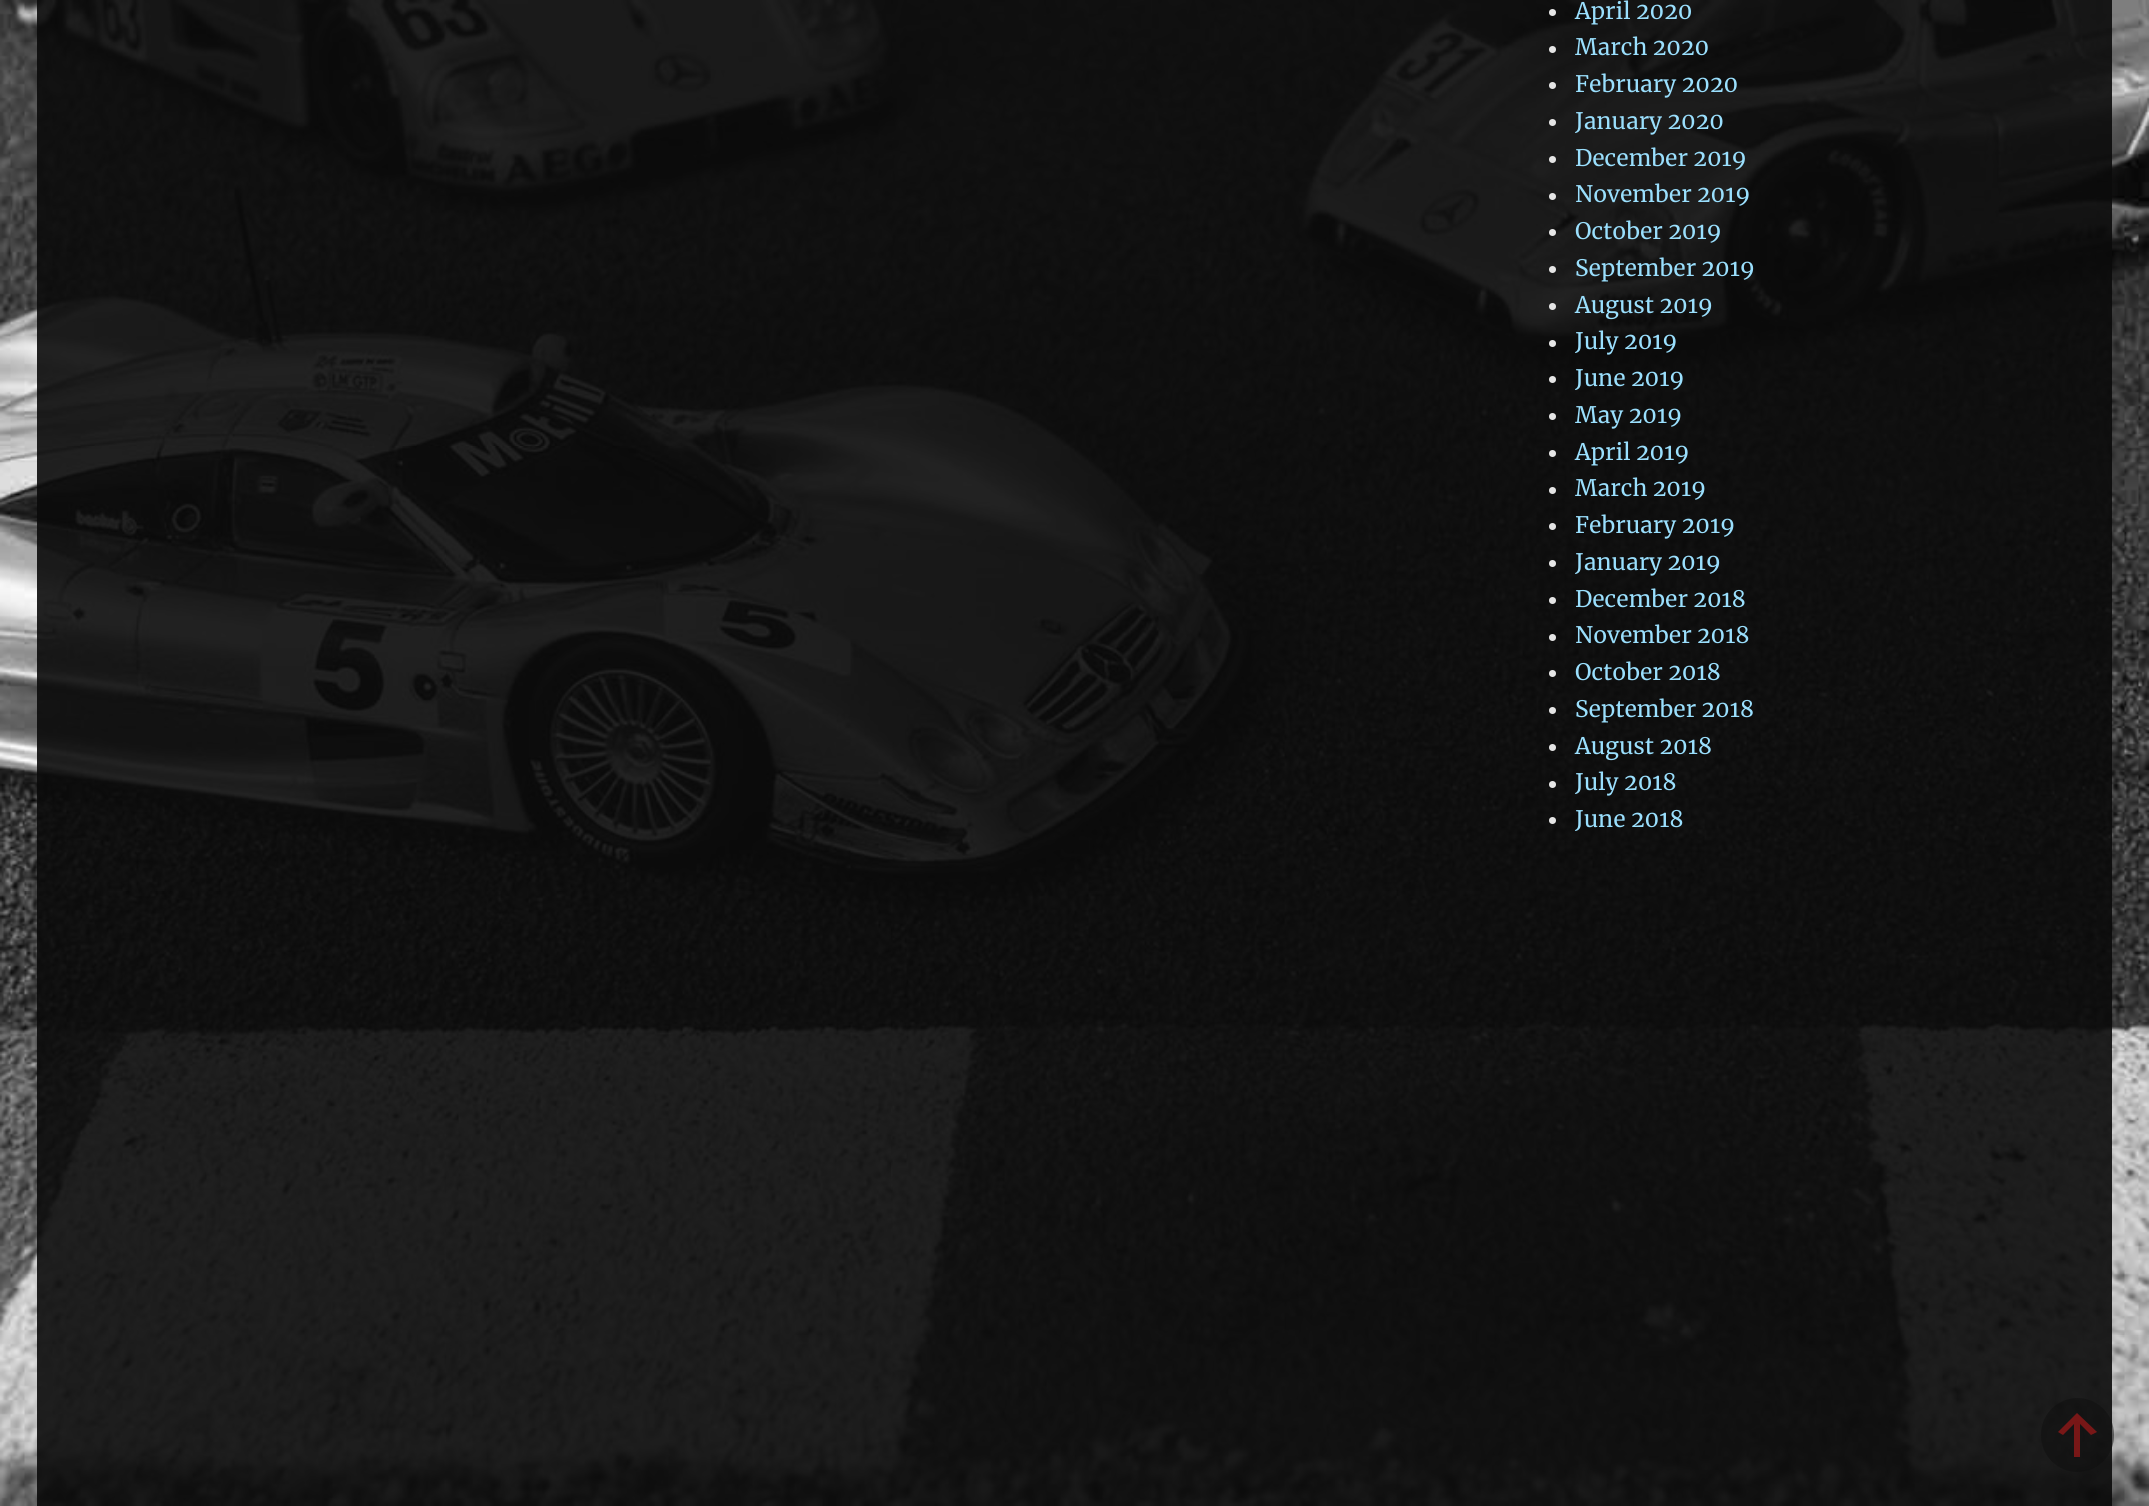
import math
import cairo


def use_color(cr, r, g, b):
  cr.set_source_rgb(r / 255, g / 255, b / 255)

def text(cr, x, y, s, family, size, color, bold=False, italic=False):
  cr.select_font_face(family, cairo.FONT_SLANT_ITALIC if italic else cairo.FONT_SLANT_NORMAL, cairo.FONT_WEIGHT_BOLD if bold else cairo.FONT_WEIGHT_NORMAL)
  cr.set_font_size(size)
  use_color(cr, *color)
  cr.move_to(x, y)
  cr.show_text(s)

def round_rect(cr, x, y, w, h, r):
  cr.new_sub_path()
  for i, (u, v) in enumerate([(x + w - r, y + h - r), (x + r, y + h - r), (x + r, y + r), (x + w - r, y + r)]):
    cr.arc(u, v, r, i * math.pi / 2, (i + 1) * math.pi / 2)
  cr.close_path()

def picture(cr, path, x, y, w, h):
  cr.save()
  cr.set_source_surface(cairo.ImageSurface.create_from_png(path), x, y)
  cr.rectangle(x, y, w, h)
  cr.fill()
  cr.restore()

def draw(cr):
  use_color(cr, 255, 255, 255)
  cr.paint()
  picture(cr, "img_01.png", 0, 0, 2149, 1506)
  use_color(cr, 229, 229, 229)
  cr.arc(1552.5, 12.5, 3.5, 0, 2 * math.pi)
  cr.fill()
  cr.arc(1552.5, 49.5, 3.5, 0, 2 * math.pi)
  cr.fill()
  cr.arc(1552.5, 85.5, 3.5, 0, 2 * math.pi)
  cr.fill()
  cr.arc(1552.5, 122.5, 3.5, 0, 2 * math.pi)
  cr.fill()
  cr.arc(1552.5, 159.5, 3.5, 0, 2 * math.pi)
  cr.fill()
  cr.arc(1552.5, 196.5, 3.5, 0, 2 * math.pi)
  cr.fill()
  cr.arc(1552.5, 232.5, 3.5, 0, 2 * math.pi)
  cr.fill()
  cr.arc(1552.5, 269.5, 3.5, 0, 2 * math.pi)
  cr.fill()
  cr.arc(1552.5, 306.5, 3.5, 0, 2 * math.pi)
  cr.fill()
  cr.arc(1552.5, 343.5, 3.5, 0, 2 * math.pi)
  cr.fill()
  cr.arc(1552.5, 379.5, 3.5, 0, 2 * math.pi)
  cr.fill()
  cr.arc(1552.5, 416.5, 3.5, 0, 2 * math.pi)
  cr.fill()
  cr.arc(1552.5, 453.5, 3.5, 0, 2 * math.pi)
  cr.fill()
  cr.arc(1552.5, 490.5, 3.5, 0, 2 * math.pi)
  cr.fill()
  cr.arc(1552.5, 526.5, 3.5, 0, 2 * math.pi)
  cr.fill()
  cr.arc(1552.5, 563.5, 3.5, 0, 2 * math.pi)
  cr.fill()
  cr.arc(1552.5, 600.5, 3.5, 0, 2 * math.pi)
  cr.fill()
  cr.arc(1552.5, 637.5, 3.5, 0, 2 * math.pi)
  cr.fill()
  cr.arc(1552.5, 673.5, 3.5, 0, 2 * math.pi)
  cr.fill()
  cr.arc(1552.5, 710.5, 3.5, 0, 2 * math.pi)
  cr.fill()
  cr.arc(1552.5, 747.5, 3.5, 0, 2 * math.pi)
  cr.fill()
  cr.arc(1552.5, 784.5, 3.5, 0, 2 * math.pi)
  cr.fill()
  cr.arc(1552.5, 820.5, 3.5, 0, 2 * math.pi)
  cr.fill()
  cr.set_source_rgba(0.059, 0.059, 0.059, 0.5)
  round_rect(cr, 2041, 1398, 73, 74, 36.5)
  cr.fill()
  cr.set_source_rgba(0.867, 0.102, 0.102, 0.5)
  cr.new_path()
  cr.move_to(2080, 1457)
  cr.line_to(2074, 1457)
  cr.line_to(2074, 1424)
  cr.line_to(2063, 1435)
  cr.line_to(2058, 1432)
  cr.line_to(2077, 1413)
  cr.line_to(2097, 1432)
  cr.line_to(2091, 1435)
  cr.line_to(2080, 1424)
  cr.close_path()
  cr.fill()
  text(cr, 1575, 19, "April 2020", "Merriweather", 22.75, (154, 223, 253))
  text(cr, 1575, 55, "March 2020", "Merriweather", 22.75, (154, 223, 253))
  text(cr, 1575, 92, "February 2020", "Merriweather", 22.75, (154, 223, 253))
  text(cr, 1575, 129, "January 2020", "Merriweather", 22.75, (154, 223, 253))
  text(cr, 1575, 166, "December 2019", "Merriweather", 22.75, (154, 223, 253))
  text(cr, 1575, 202, "November 2019", "Merriweather", 22.75, (154, 223, 253))
  text(cr, 1575, 239, "October 2019", "Merriweather", 22.75, (154, 223, 253))
  text(cr, 1575, 276, "September 2019", "Merriweather", 22.75, (154, 223, 253))
  text(cr, 1575, 313, "August 2019", "Merriweather", 22.75, (154, 223, 253))
  text(cr, 1575, 349, "July 2019", "Merriweather", 22.75, (154, 223, 253))
  text(cr, 1575, 386, "June 2019", "Merriweather", 22.75, (154, 223, 253))
  text(cr, 1575, 423, "May 2019", "Merriweather", 22.75, (154, 223, 253))
  text(cr, 1575, 460, "April 2019", "Merriweather", 22.75, (154, 223, 253))
  text(cr, 1575, 496, "March 2019", "Merriweather", 22.75, (154, 223, 253))
  text(cr, 1575, 533, "February 2019", "Merriweather", 22.75, (154, 223, 253))
  text(cr, 1575, 570, "January 2019", "Merriweather", 22.75, (154, 223, 253))
  text(cr, 1575, 607, "December 2018", "Merriweather", 22.75, (154, 223, 253))
  text(cr, 1575, 643, "November 2018", "Merriweather", 22.75, (154, 223, 253))
  text(cr, 1575, 680, "October 2018", "Merriweather", 22.75, (154, 223, 253))
  text(cr, 1575, 717, "September 2018", "Merriweather", 22.75, (154, 223, 253))
  text(cr, 1575, 754, "August 2018", "Merriweather", 22.75, (154, 223, 253))
  text(cr, 1575, 790, "July 2018", "Merriweather", 22.75, (154, 223, 253))
  text(cr, 1575, 827, "June 2018", "Merriweather", 22.75, (154, 223, 253))


surface = cairo.ImageSurface(cairo.FORMAT_RGB24, 2149, 1506)
cr = cairo.Context(surface)
options = cairo.FontOptions()
options.set_hint_metrics(cairo.HINT_METRICS_OFF)
options.set_hint_style(cairo.HINT_STYLE_NONE)
cr.set_font_options(options)
cr.set_miter_limit(4)
draw(cr)
surface.write_to_png("out.png")
